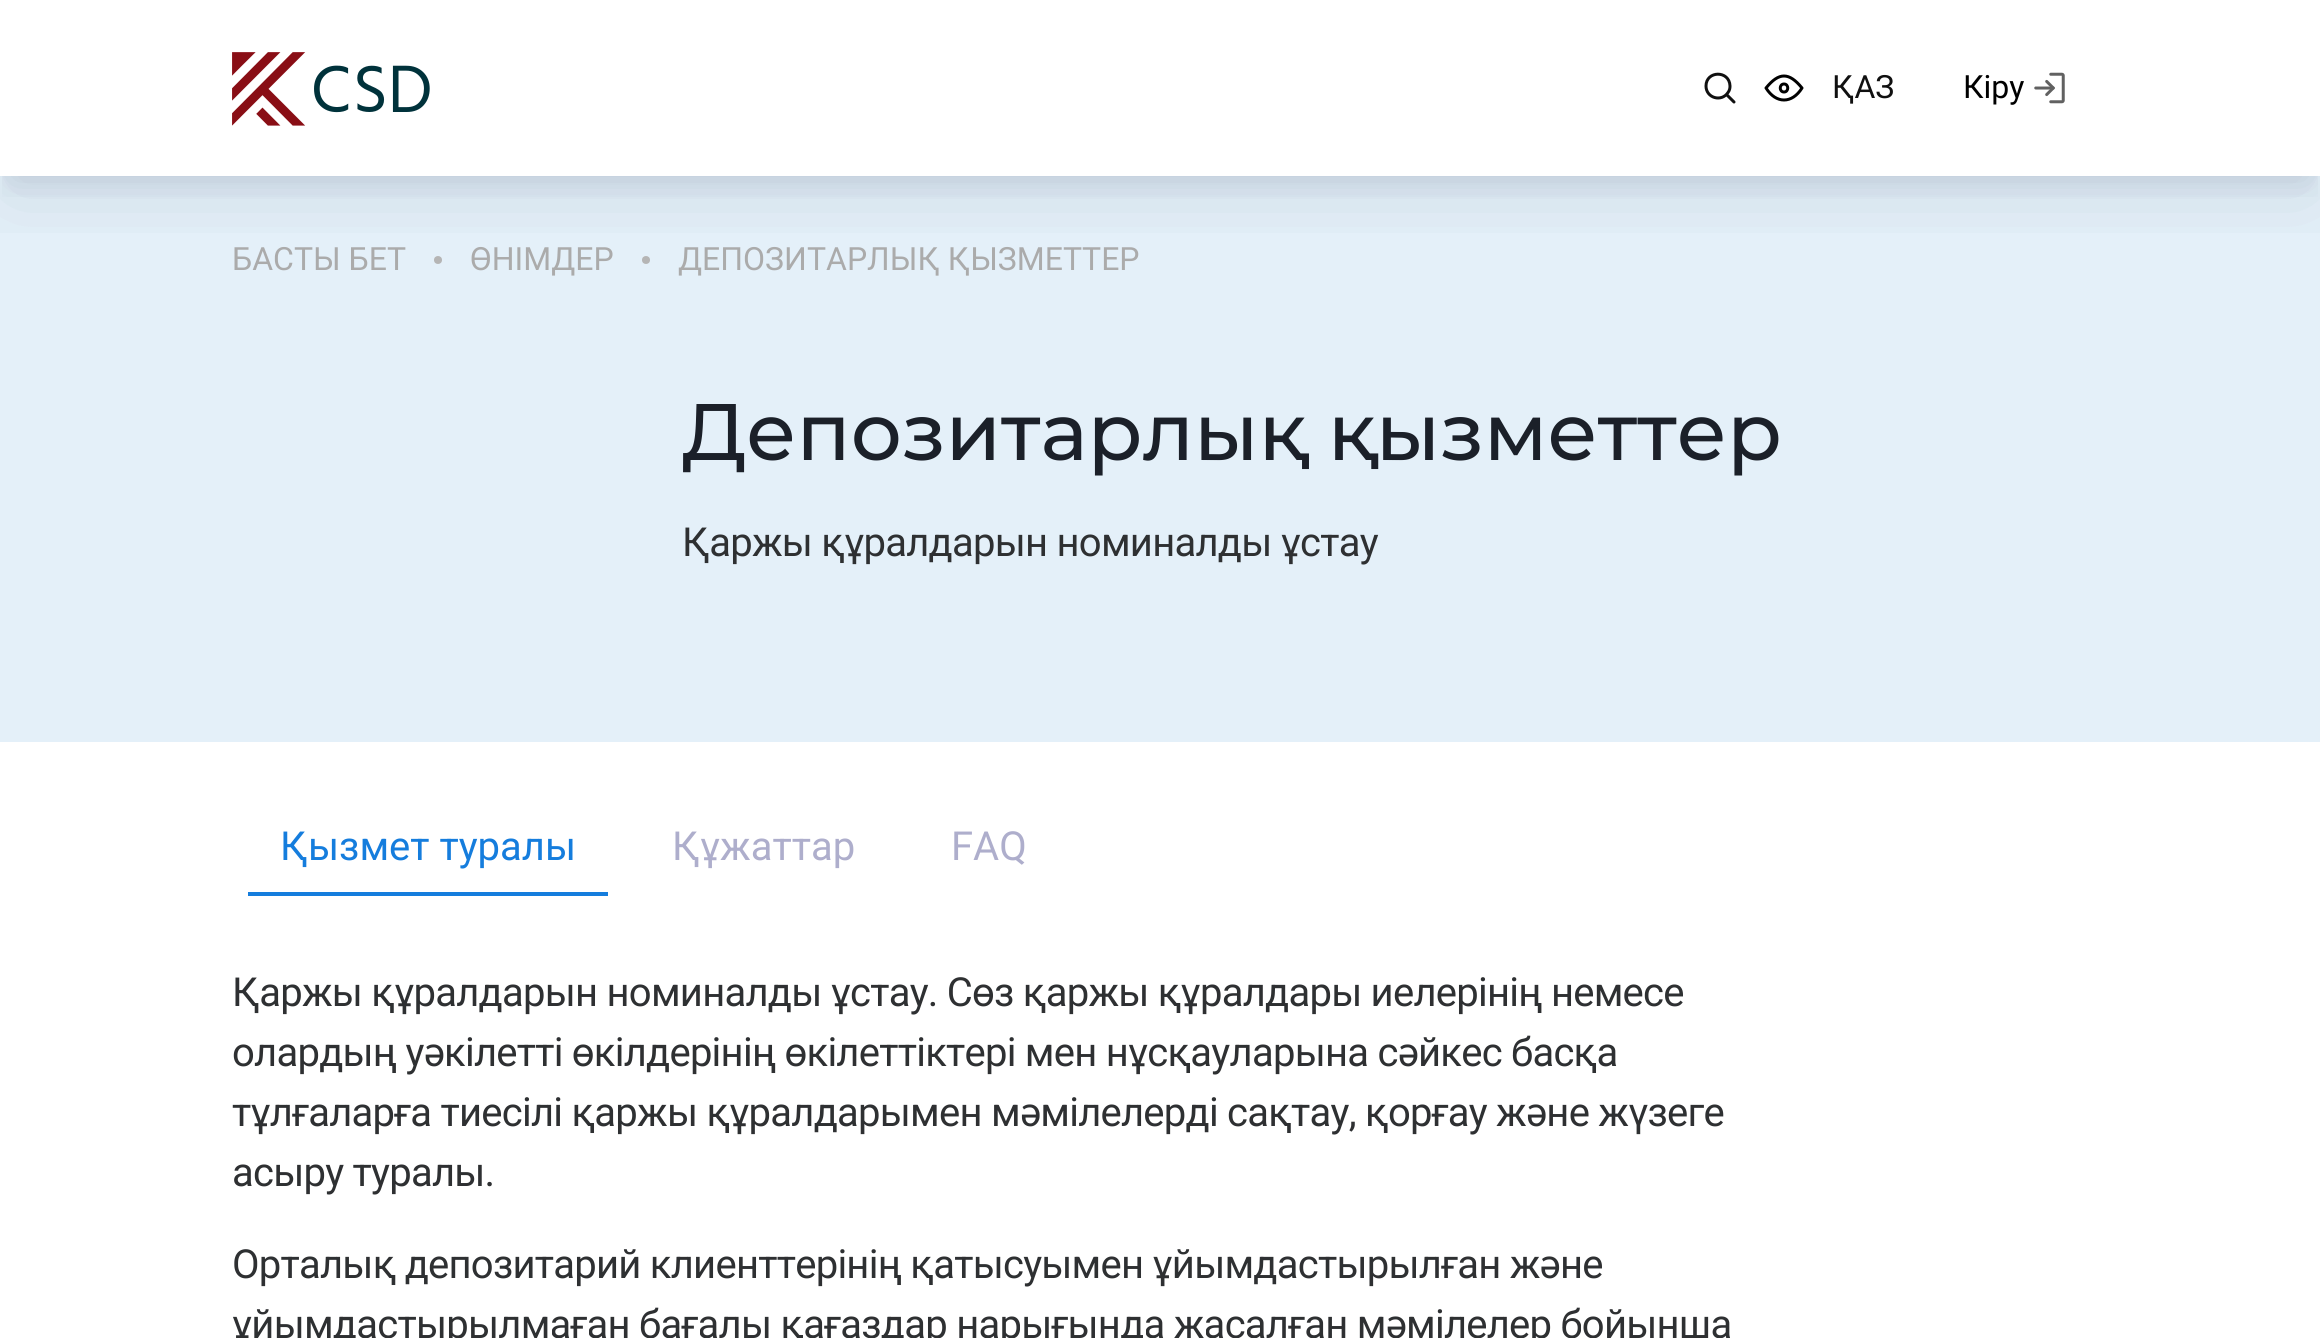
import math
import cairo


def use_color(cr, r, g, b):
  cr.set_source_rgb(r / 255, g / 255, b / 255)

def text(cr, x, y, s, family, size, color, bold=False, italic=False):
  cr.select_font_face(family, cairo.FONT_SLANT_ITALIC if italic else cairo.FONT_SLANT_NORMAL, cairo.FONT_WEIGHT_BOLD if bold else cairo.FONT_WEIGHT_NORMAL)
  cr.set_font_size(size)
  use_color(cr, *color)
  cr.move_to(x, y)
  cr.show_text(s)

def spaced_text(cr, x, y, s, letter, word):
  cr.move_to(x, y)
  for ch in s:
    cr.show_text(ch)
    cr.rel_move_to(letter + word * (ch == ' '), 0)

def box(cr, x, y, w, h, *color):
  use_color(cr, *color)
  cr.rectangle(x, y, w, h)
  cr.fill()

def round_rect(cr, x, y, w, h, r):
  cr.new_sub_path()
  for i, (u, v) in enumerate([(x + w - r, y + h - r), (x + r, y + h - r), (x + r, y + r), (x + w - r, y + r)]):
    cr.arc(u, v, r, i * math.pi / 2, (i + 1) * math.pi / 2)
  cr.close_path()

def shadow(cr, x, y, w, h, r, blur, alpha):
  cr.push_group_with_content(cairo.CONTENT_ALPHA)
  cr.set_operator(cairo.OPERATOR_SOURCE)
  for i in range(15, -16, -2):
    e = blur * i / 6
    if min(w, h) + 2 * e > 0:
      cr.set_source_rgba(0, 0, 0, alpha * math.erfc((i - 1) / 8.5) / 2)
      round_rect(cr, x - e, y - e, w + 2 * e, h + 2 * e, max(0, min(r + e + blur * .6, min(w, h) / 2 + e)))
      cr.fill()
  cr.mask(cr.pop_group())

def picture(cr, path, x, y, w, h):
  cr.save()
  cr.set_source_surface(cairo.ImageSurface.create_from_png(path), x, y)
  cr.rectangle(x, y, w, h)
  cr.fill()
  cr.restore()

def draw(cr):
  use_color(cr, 255, 255, 255)
  cr.paint()
  box(cr, 0, 176, 2320, 566, 228, 240, 249)
  cr.save()
  cr.rectangle(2, 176, 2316, 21)
  cr.clip()
  use_color(cr, 24, 39, 75)
  shadow(cr, 12, 28, 2296, 152, 0, 18, 0.12)
  cr.restore()
  use_color(cr, 181, 181, 181)
  cr.arc(438, 260, 4, 0, 2 * math.pi)
  cr.fill()
  cr.arc(646, 260, 4, 0, 2 * math.pi)
  cr.fill()
  cr.save()
  cr.rectangle(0, 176, 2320, 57)
  cr.clip()
  use_color(cr, 24, 39, 75)
  shadow(cr, 8, 32, 2304, 160, 0, 42, 0.12)
  cr.restore()
  picture(cr, "img_01.png", 232, 52, 198, 74)
  cr.new_path()
  cr.move_to(1727, 95)
  cr.line_to(1734, 102)
  cr.move_to(1706, 86)
  cr.curve_to(1706, 98, 1721.5, 102.5, 1728, 92.5)
  cr.curve_to(1729.5, 90.5, 1730, 88.5, 1730, 86)
  cr.curve_to(1729.5, 70, 1706, 70.5, 1706, 86)
  cr.close_path()
  use_color(cr, 16, 16, 16)
  cr.set_line_width(3)
  cr.set_line_cap(cairo.LINE_CAP_ROUND)
  cr.set_line_join(cairo.LINE_JOIN_ROUND)
  cr.stroke()
  cr.new_path()
  cr.move_to(1784, 92)
  cr.curve_to(1789, 92, 1789, 84, 1784, 84)
  cr.curve_to(1779, 84, 1779, 92, 1784, 92)
  cr.close_path()
  cr.move_to(1802, 88)
  cr.curve_to(1792, 104, 1776, 104, 1766, 88)
  cr.curve_to(1779, 72, 1789, 72, 1802, 88)
  cr.close_path()
  use_color(cr, 0, 0, 0)
  cr.stroke()
  picture(cr, "img_02.png", 2034, 72, 31, 32)
  box(cr, 248, 892, 360, 4, 21, 125, 221)
  text(cr, 1832, 98, "ҚАЗ", "Roboto", 32, (16, 16, 16))
  text(cr, 1963, 98, "Кіру", "Roboto", 32, (0, 0, 0))
  text(cr, 232, 270, "БАСТЫ БЕТ", "Roboto", 32, (171, 171, 171))
  text(cr, 470, 270, "ӨНІМДЕР", "Roboto", 32, (171, 171, 171))
  text(cr, 678, 270, "ДЕПОЗИТАРЛЫҚ ҚЫЗМЕТТЕР", "Roboto", 32, (171, 171, 171))
  text(cr, 682, 460, "Депозитарлық қызметтер", "Montserrat Medium", 80, (27, 32, 41))
  cr.select_font_face("Roboto")
  cr.set_font_size(40)
  use_color(cr, 46, 48, 50)
  spaced_text(cr, 682, 556, "Қаржы құралдарын номиналды ұстау", -0.75, 0)
  text(cr, 280, 860, "Қызмет туралы", "Roboto", 40, (21, 125, 221))
  text(cr, 672, 860, "Құжаттар", "Roboto", 40, (174, 174, 204))
  text(cr, 951, 860, "FAQ", "Roboto", 40, (174, 174, 204))
  use_color(cr, 46, 48, 50)
  spaced_text(cr, 232, 1006, "Қаржы құралдарын номиналды ұстау. Сөз қаржы құралдары иелерінің немесе", -0.75, 0)
  spaced_text(cr, 232, 1066, "олардың уәкілетті өкілдерінің өкілеттіктері мен нұсқауларына сәйкес басқа", -0.75, 0)
  spaced_text(cr, 232, 1126, "тұлғаларға тиесілі қаржы құралдарымен мәмілелерді сақтау, қорғау және жүзеге", -0.75, 0)
  spaced_text(cr, 232, 1186, "асыру туралы.", -0.75, 0)
  spaced_text(cr, 232, 1278, "Орталық депозитарий клиенттерінің қатысуымен ұйымдастырылған және", -0.75, 0)
  spaced_text(cr, 232, 1338, "ұйымдастырылмаған бағалы қағаздар нарығында жасалған мәмілелер бойынша", -0.75, 0)


surface = cairo.ImageSurface(cairo.FORMAT_RGB24, 2320, 1338)
cr = cairo.Context(surface)
options = cairo.FontOptions()
options.set_hint_metrics(cairo.HINT_METRICS_OFF)
options.set_hint_style(cairo.HINT_STYLE_NONE)
cr.set_font_options(options)
cr.set_miter_limit(4)
draw(cr)
surface.write_to_png("out.png")
